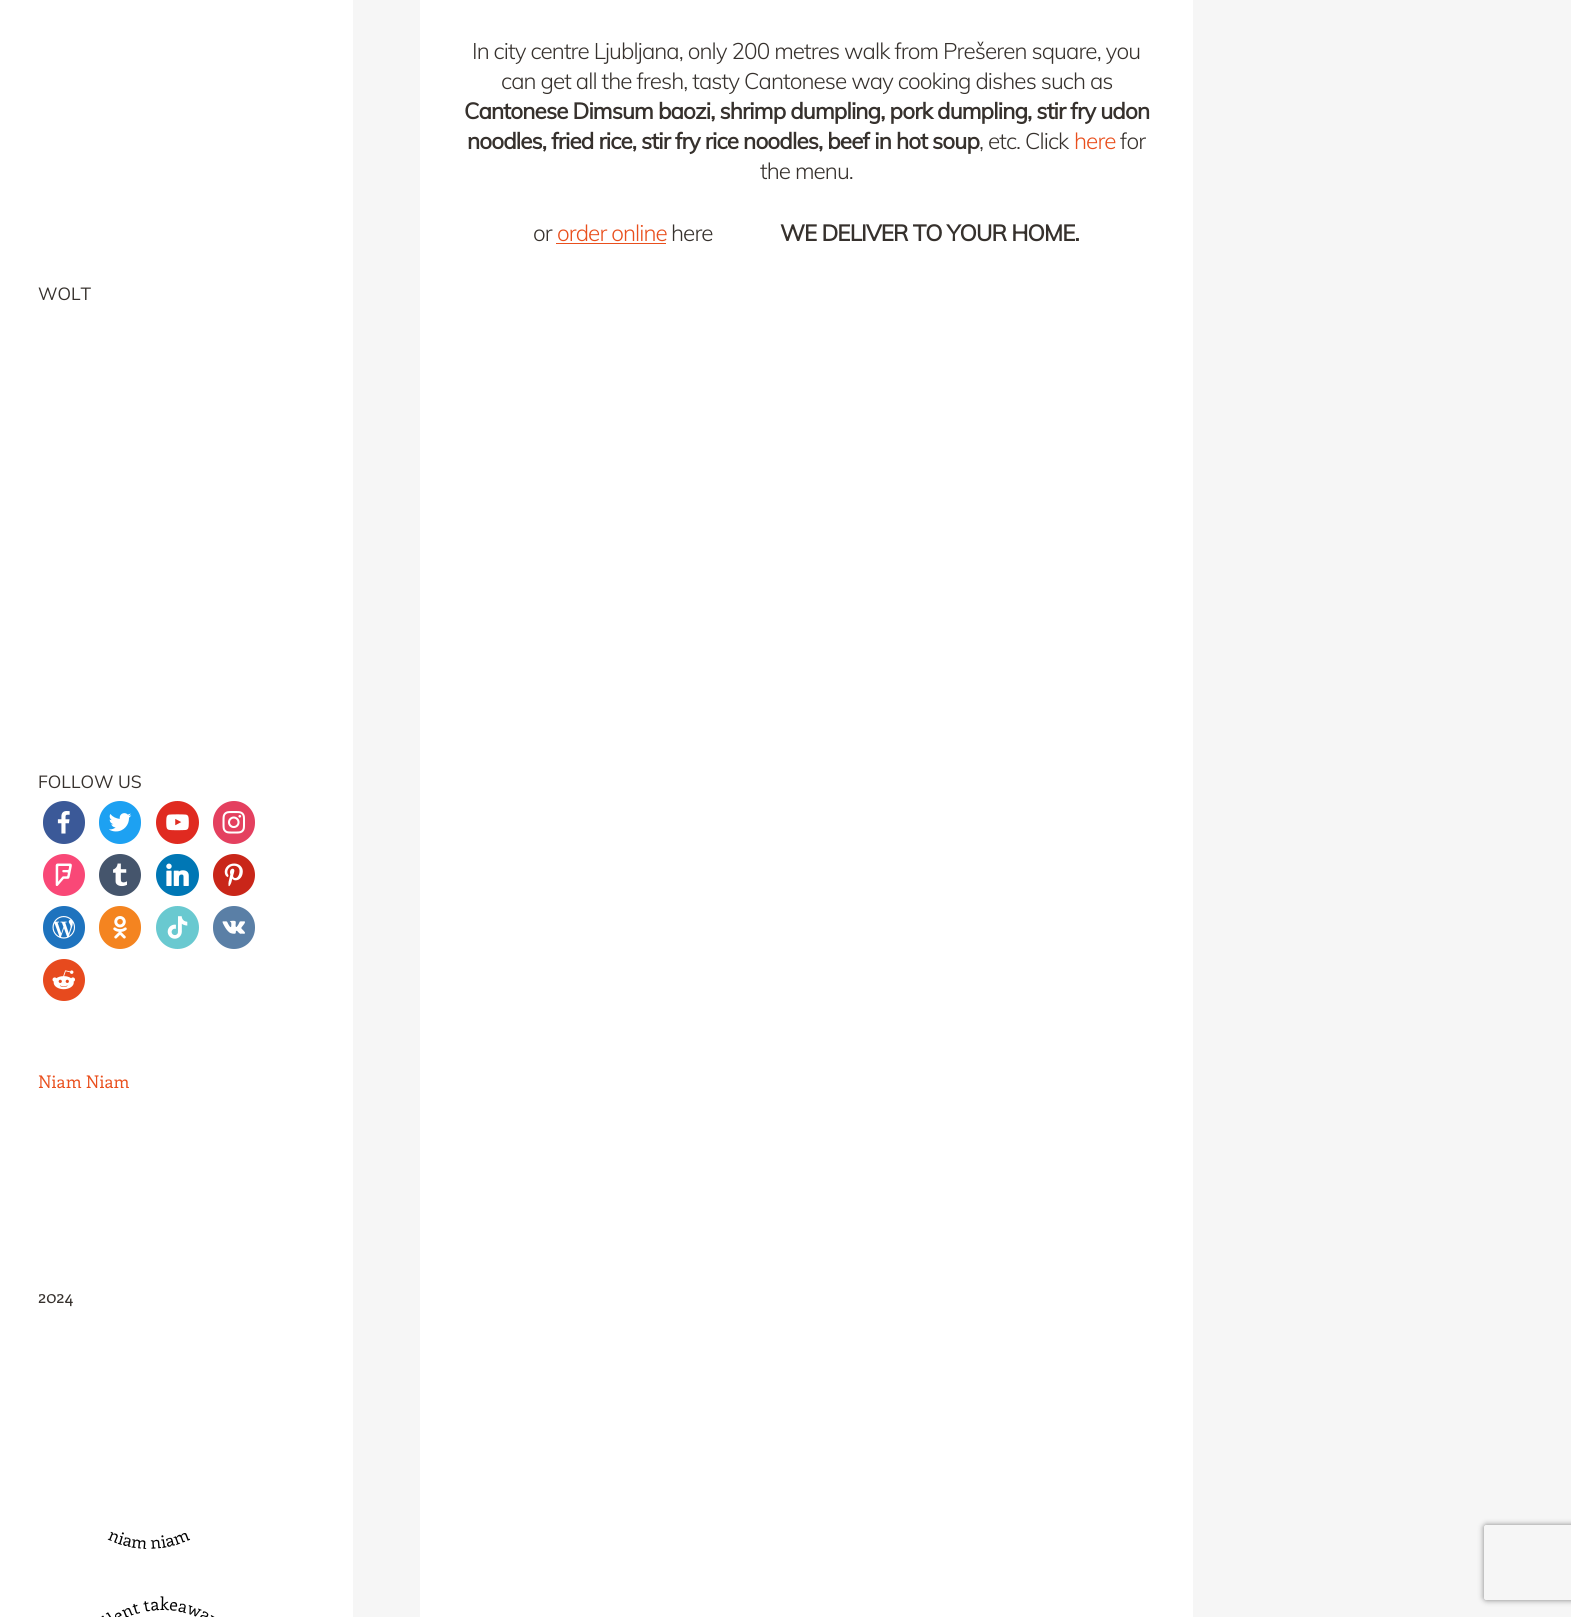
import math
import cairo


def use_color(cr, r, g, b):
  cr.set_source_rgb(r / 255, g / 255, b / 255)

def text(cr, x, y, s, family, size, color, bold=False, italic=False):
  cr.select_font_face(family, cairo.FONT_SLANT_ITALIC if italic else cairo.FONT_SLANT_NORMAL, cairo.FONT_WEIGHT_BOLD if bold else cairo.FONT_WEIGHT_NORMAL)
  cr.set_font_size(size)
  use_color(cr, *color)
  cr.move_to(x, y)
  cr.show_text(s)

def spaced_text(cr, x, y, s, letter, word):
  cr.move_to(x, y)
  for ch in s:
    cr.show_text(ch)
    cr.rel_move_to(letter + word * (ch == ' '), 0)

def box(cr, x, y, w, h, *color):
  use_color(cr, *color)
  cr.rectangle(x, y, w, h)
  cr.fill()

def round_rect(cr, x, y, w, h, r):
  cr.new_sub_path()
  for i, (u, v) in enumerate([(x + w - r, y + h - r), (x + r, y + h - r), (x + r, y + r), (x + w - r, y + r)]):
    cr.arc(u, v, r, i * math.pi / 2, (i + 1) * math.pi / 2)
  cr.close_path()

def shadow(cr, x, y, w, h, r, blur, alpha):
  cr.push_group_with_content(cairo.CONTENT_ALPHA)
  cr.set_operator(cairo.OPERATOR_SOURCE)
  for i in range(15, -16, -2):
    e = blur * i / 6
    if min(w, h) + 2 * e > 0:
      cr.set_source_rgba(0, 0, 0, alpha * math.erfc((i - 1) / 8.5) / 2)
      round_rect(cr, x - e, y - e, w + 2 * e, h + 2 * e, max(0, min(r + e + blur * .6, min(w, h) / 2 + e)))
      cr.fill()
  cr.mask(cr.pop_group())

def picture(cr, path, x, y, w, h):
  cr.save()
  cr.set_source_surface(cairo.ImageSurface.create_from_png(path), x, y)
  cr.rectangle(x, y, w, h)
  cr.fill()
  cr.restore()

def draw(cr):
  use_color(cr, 246, 246, 246)
  cr.paint()
  box(cr, 0, 0, 353, 1617, 255, 255, 255)
  box(cr, 420, 0, 773, 1617, 255, 255, 255)
  box(cr, 556, 243, 110, 1, 233, 79, 29)
  use_color(cr, 59, 89, 152)
  round_rect(cr, 43, 801, 42, 43, 21)
  cr.fill()
  picture(cr, "img_01.png", 57, 811, 13, 23)
  use_color(cr, 29, 161, 242)
  round_rect(cr, 99, 801, 42, 43, 21)
  cr.fill()
  picture(cr, "img_02.png", 109, 813, 23, 19)
  use_color(cr, 224, 42, 32)
  cr.arc(177.5, 822.5, 21.5, 0, 2 * math.pi)
  cr.fill()
  picture(cr, "img_03.png", 166, 814, 23, 17)
  use_color(cr, 228, 64, 95)
  round_rect(cr, 213, 801, 42, 43, 21)
  cr.fill()
  picture(cr, "img_04.png", 222, 811, 24, 23)
  use_color(cr, 249, 72, 119)
  cr.arc(64, 875, 21, 0, 2 * math.pi)
  cr.fill()
  picture(cr, "img_05.png", 55, 863, 17, 23)
  use_color(cr, 69, 85, 108)
  cr.arc(120, 875, 21, 0, 2 * math.pi)
  cr.fill()
  picture(cr, "img_06.png", 113, 863, 14, 24)
  use_color(cr, 0, 119, 181)
  round_rect(cr, 156, 854, 43, 42, 21)
  cr.fill()
  picture(cr, "img_07.png", 166, 863, 23, 23)
  use_color(cr, 201, 38, 25)
  cr.arc(234, 875, 21, 0, 2 * math.pi)
  cr.fill()
  picture(cr, "img_08.png", 224, 863, 19, 24)
  use_color(cr, 30, 115, 190)
  round_rect(cr, 43, 906, 42, 43, 21)
  cr.fill()
  picture(cr, "img_09.png", 52, 916, 23, 23)
  use_color(cr, 244, 132, 32)
  round_rect(cr, 99, 906, 42, 43, 21)
  cr.fill()
  picture(cr, "img_10.png", 113, 916, 14, 23)
  use_color(cr, 105, 201, 208)
  cr.arc(177.5, 927.5, 21.5, 0, 2 * math.pi)
  cr.fill()
  picture(cr, "img_11.png", 167, 916, 21, 23)
  use_color(cr, 90, 127, 166)
  round_rect(cr, 213, 906, 42, 43, 21)
  cr.fill()
  picture(cr, "img_12.png", 222, 920, 23, 14)
  use_color(cr, 231, 74, 30)
  cr.arc(64, 980, 21, 0, 2 * math.pi)
  cr.fill()
  picture(cr, "img_13.png", 52, 970, 23, 20)
  picture(cr, "img_14.png", 107, 1531, 84, 18)
  picture(cr, "img_15.png", 101, 1596, 114, 21)
  cr.save()
  cr.set_fill_rule(cairo.FILL_RULE_EVEN_ODD)
  cr.new_path()
  cr.move_to(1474, 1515)
  cr.line_to(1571, 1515)
  cr.line_to(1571, 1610)
  cr.line_to(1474, 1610)
  cr.close_path()
  cr.move_to(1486.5, 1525)
  cr.line_to(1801.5, 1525)
  cr.curve_to(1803, 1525, 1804, 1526, 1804, 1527.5)
  cr.line_to(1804, 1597.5)
  cr.curve_to(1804, 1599, 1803, 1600, 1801.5, 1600)
  cr.line_to(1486.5, 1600)
  cr.curve_to(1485, 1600, 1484, 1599, 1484, 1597.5)
  cr.line_to(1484, 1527.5)
  cr.curve_to(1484, 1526, 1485, 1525, 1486.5, 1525)
  cr.close_path()
  cr.clip()
  use_color(cr, 128, 128, 128)
  shadow(cr, 1484, 1525, 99, 75, 2.5, 3, 1)
  cr.restore()
  cr.select_font_face("Muli Light")
  cr.set_font_size(22.5)
  use_color(cr, 54, 49, 45)
  spaced_text(cr, 472, 59, "In city centre Ljubljana, only 200 metres walk from Prešeren square, you", -0.9, 0)
  spaced_text(cr, 501, 89, "can get all the fresh, tasty Cantonese way cooking dishes such as", -0.9, 0)
  cr.select_font_face("Muli", cairo.FONT_SLANT_NORMAL, cairo.FONT_WEIGHT_BOLD)
  spaced_text(cr, 464, 119, "Cantonese Dimsum baozi, shrimp dumpling, pork dumpling, stir fry udon", -0.9, 0)
  spaced_text(cr, 467, 149, "noodles, fried rice, stir fry rice noodles, beef in hot soup", -0.9, 0)
  cr.select_font_face("Muli Light")
  spaced_text(cr, 979, 149, ", etc. Click", -0.9, 0)
  use_color(cr, 233, 79, 29)
  spaced_text(cr, 1074, 149, "here", -0.9, 0)
  use_color(cr, 54, 49, 45)
  spaced_text(cr, 1120, 149, "for", -0.9, 0)
  spaced_text(cr, 760, 179, "the menu.", -0.9, 0)
  spaced_text(cr, 533, 241, "or", -0.9, 0)
  use_color(cr, 233, 79, 29)
  spaced_text(cr, 557, 241, "order online", -0.9, 0)
  use_color(cr, 54, 49, 45)
  spaced_text(cr, 671, 241, "here", -0.9, 0)
  cr.select_font_face("Muli", cairo.FONT_SLANT_NORMAL, cairo.FONT_WEIGHT_BOLD)
  spaced_text(cr, 780, 241, "WE DELIVER TO YOUR HOME.", -0.9, 0)
  text(cr, 38, 300, "WOLT", "Muli", 17.5, (54, 49, 45))
  text(cr, 38, 788, "FOLLOW US", "Muli", 17.5, (54, 49, 45))
  text(cr, 38, 1088, "Niam Niam", "Enriqueta", 17.5, (233, 79, 29))
  text(cr, 38, 1303, "2024", "Enriqueta", 17.5, (54, 49, 45))


surface = cairo.ImageSurface(cairo.FORMAT_RGB24, 1571, 1617)
cr = cairo.Context(surface)
options = cairo.FontOptions()
options.set_hint_metrics(cairo.HINT_METRICS_OFF)
options.set_hint_style(cairo.HINT_STYLE_NONE)
cr.set_font_options(options)
cr.set_miter_limit(4)
draw(cr)
surface.write_to_png("out.png")
